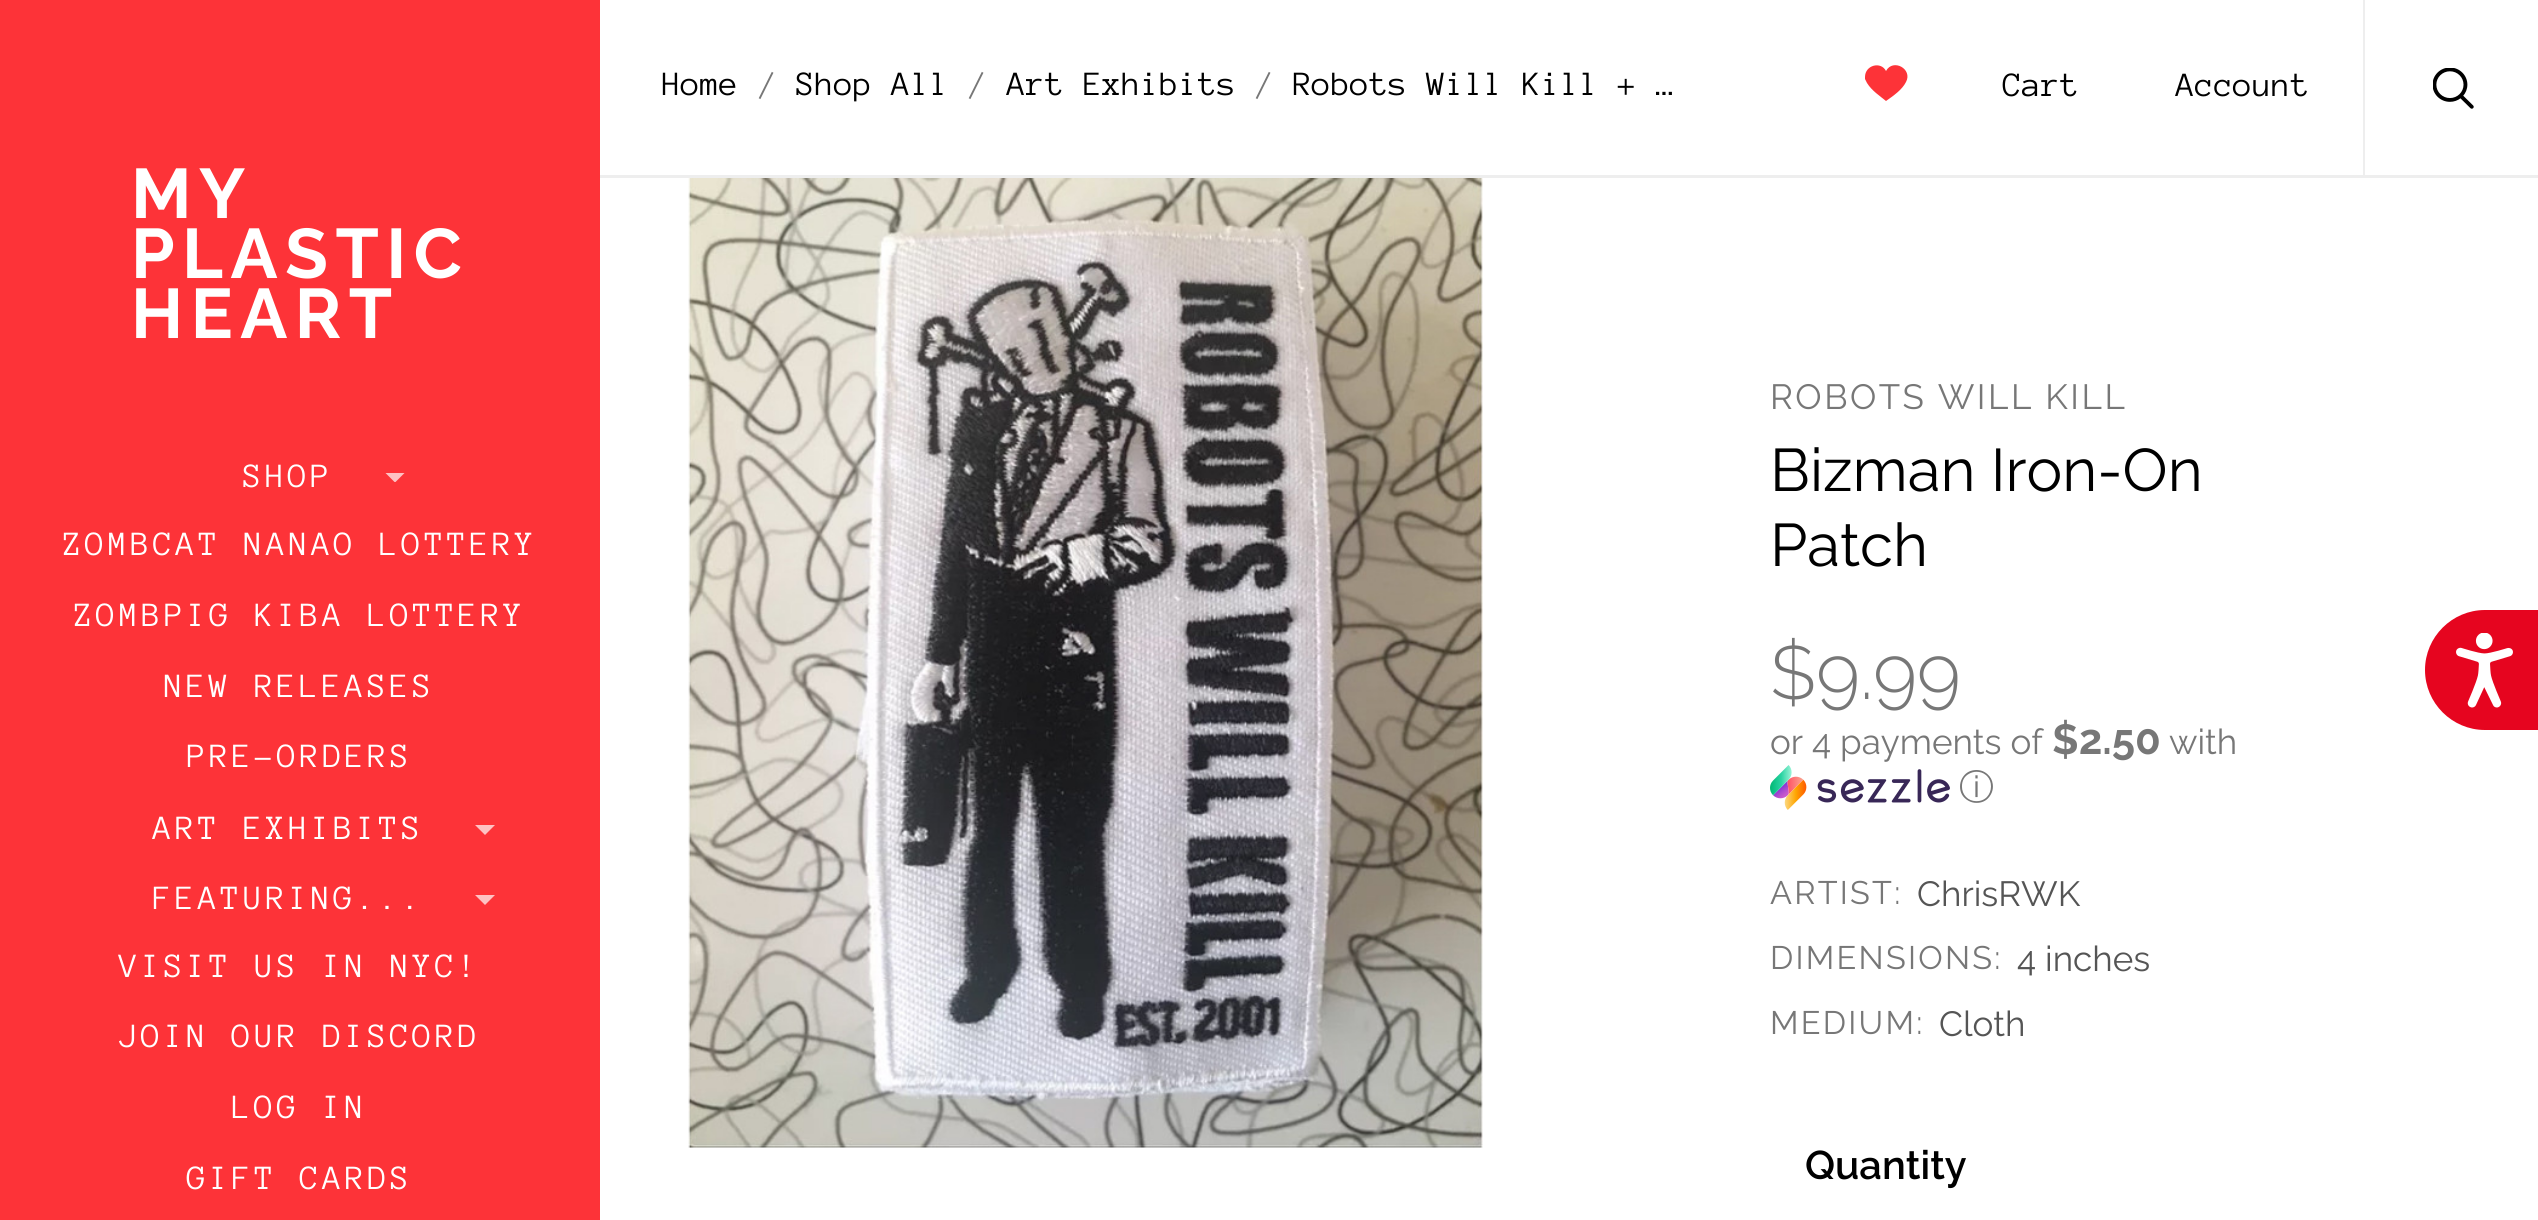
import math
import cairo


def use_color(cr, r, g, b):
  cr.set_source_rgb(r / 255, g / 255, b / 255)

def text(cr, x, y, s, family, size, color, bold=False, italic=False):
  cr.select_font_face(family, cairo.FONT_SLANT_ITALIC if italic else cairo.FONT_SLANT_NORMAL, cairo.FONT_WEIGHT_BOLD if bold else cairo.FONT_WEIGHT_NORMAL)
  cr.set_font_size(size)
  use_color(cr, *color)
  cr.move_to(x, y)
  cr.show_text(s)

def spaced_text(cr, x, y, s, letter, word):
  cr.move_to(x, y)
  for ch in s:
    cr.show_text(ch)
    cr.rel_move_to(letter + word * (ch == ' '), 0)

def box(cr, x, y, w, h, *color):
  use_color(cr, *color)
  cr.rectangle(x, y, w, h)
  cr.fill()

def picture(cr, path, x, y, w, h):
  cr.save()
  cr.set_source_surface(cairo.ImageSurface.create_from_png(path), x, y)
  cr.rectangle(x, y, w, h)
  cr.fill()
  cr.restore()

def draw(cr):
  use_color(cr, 255, 255, 255)
  cr.paint()
  box(cr, 600, 175, 1938, 3, 238, 238, 238)
  use_color(cr, 253, 51, 56)
  cr.new_path()
  cr.move_to(1867, 83)
  cr.line_to(1865, 79)
  cr.line_to(1865, 77)
  cr.curve_to(1865, 65, 1881, 61, 1886, 71)
  cr.curve_to(1893, 58, 1913, 69, 1906, 82)
  cr.curve_to(1902, 90, 1893, 96, 1886, 101)
  cr.curve_to(1880, 96, 1872, 91, 1867, 83)
  cr.close_path()
  cr.fill()
  box(cr, 2363, 0, 2, 175, 238, 238, 238)
  picture(cr, "img_01.png", 2433, 68, 41, 41)
  box(cr, 0, 0, 600, 1220, 253, 51, 56)
  cr.save()
  cr.rectangle(385, 473, 20, 9)
  cr.clip()
  use_color(cr, 254, 194, 195)
  cr.new_path()
  cr.move_to(395, 482.5)
  cr.line_to(385, 472.5)
  cr.line_to(405, 472.5)
  cr.close_path()
  cr.fill()
  cr.restore()
  use_color(cr, 254, 194, 195)
  cr.new_path()
  cr.move_to(485, 835)
  cr.line_to(475, 825)
  cr.line_to(495, 825)
  cr.close_path()
  cr.fill()
  cr.new_path()
  cr.move_to(485, 905)
  cr.line_to(475, 895)
  cr.line_to(495, 895)
  cr.close_path()
  cr.fill()
  picture(cr, "img_02.png", 688, 178, 795, 970)
  picture(cr, "img_03.png", 1770, 765, 180, 45)
  use_color(cr, 230, 5, 31)
  cr.new_path()
  cr.move_to(2485, 610)
  cr.line_to(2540, 610)
  cr.line_to(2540, 730)
  cr.line_to(2485, 730)
  cr.curve_to(2452, 730, 2425, 703, 2425, 670)
  cr.curve_to(2425, 637, 2452, 610, 2485, 610)
  cr.close_path()
  cr.fill()
  picture(cr, "img_04.png", 2456, 633, 57, 75)
  text(cr, 662, 95, "Home", "Anonymous Pro", 35, (0, 0, 0))
  text(cr, 758, 95, "/", "Anonymous Pro", 35, (119, 119, 119))
  text(cr, 796, 95, "Shop All", "Anonymous Pro", 35, (0, 0, 0))
  text(cr, 968, 95, "/", "Anonymous Pro", 35, (119, 119, 119))
  text(cr, 1007, 95, "Art Exhibits", "Anonymous Pro", 35, (0, 0, 0))
  text(cr, 1255, 95, "/", "Anonymous Pro", 35, (119, 119, 119))
  text(cr, 1293, 95, "Robots Will Kill + …", "Anonymous Pro", 35, (0, 0, 0))
  text(cr, 2003, 96, "Cart", "Anonymous Pro", 35, (0, 0, 0))
  text(cr, 2176, 96, "Account", "Anonymous Pro", 35, (0, 0, 0))
  cr.select_font_face("Raleway", cairo.FONT_SLANT_NORMAL, cairo.FONT_WEIGHT_BOLD)
  cr.set_font_size(70)
  use_color(cr, 255, 255, 255)
  spaced_text(cr, 131, 218, "MY", 7.5, 0)
  spaced_text(cr, 131, 278, "PLASTIC", 7.5, 0)
  spaced_text(cr, 131, 338, "HEART", 7.5, 0)
  cr.select_font_face("Anonymous Pro")
  cr.set_font_size(35)
  spaced_text(cr, 243, 487, "SHOP", 3.5, 0)
  spaced_text(cr, 63, 555, "ZOMBCAT NANAO LOTTERY", 3.5, 0)
  spaced_text(cr, 74, 626, "ZOMBPIG KIBA LOTTERY", 3.5, 0)
  spaced_text(cr, 164, 697, "NEW RELEASES", 3.5, 0)
  spaced_text(cr, 187, 767, "PRE-ORDERS", 3.5, 0)
  spaced_text(cr, 153, 839, "ART EXHIBITS", 3.5, 0)
  spaced_text(cr, 153, 909, "FEATURING...", 3.5, 0)
  spaced_text(cr, 119, 977, "VISIT US IN NYC!", 3.5, 0)
  spaced_text(cr, 119, 1047, "JOIN OUR DISCORD", 3.5, 0)
  spaced_text(cr, 232, 1118, "LOG IN", 3.5, 0)
  spaced_text(cr, 187, 1189, "GIFT CARDS", 3.5, 0)
  cr.select_font_face("Raleway")
  use_color(cr, 119, 119, 119)
  spaced_text(cr, 1770, 409, "ROBOTS WILL KILL", 2.5, 0)
  text(cr, 1770, 491, "Bizman Iron-On", "Raleway", 60, (0, 0, 0))
  text(cr, 1770, 566, "Patch", "Raleway", 60, (0, 0, 0))
  text(cr, 1770, 699, "$9.99", "Raleway Light", 75, (119, 119, 119))
  text(cr, 1770, 754, "or 4 payments of", "Raleway", 35, (119, 119, 119))
  text(cr, 2052, 754, "$2.50", "Raleway", 42, (119, 119, 119), bold=True)
  text(cr, 2169, 754, "with", "Raleway", 35, (119, 119, 119))
  text(cr, 1959, 799, "ⓘ", "WenQuanYi Zen Hei Medium", 35, (119, 119, 119))
  cr.select_font_face("Raleway")
  cr.set_font_size(32.5)
  spaced_text(cr, 1770, 904, "ARTIST:", 2.25, 0)
  text(cr, 1917, 906, "ChrisRWK", "Raleway", 35, (85, 85, 85))
  cr.set_font_size(32.5)
  use_color(cr, 119, 119, 119)
  spaced_text(cr, 1770, 969, "DIMENSIONS:", 2.25, 0)
  text(cr, 2017, 971, "4 inches", "Raleway", 35, (85, 85, 85))
  cr.set_font_size(32.5)
  use_color(cr, 119, 119, 119)
  spaced_text(cr, 1770, 1034, "MEDIUM:", 2.25, 0)
  text(cr, 1939, 1036, "Cloth", "Raleway", 35, (85, 85, 85))
  text(cr, 1805, 1179, "Quantity", "Raleway SemiBold", 40, (0, 0, 0))


surface = cairo.ImageSurface(cairo.FORMAT_RGB24, 2538, 1220)
cr = cairo.Context(surface)
options = cairo.FontOptions()
options.set_hint_metrics(cairo.HINT_METRICS_OFF)
options.set_hint_style(cairo.HINT_STYLE_NONE)
cr.set_font_options(options)
cr.set_miter_limit(4)
draw(cr)
surface.write_to_png("out.png")
